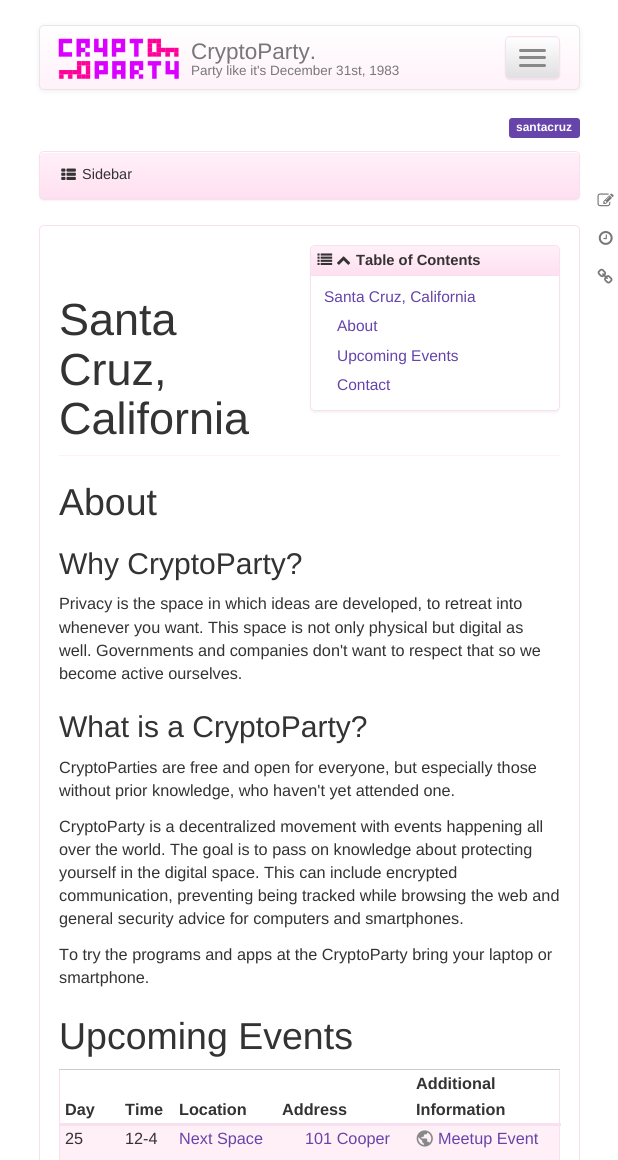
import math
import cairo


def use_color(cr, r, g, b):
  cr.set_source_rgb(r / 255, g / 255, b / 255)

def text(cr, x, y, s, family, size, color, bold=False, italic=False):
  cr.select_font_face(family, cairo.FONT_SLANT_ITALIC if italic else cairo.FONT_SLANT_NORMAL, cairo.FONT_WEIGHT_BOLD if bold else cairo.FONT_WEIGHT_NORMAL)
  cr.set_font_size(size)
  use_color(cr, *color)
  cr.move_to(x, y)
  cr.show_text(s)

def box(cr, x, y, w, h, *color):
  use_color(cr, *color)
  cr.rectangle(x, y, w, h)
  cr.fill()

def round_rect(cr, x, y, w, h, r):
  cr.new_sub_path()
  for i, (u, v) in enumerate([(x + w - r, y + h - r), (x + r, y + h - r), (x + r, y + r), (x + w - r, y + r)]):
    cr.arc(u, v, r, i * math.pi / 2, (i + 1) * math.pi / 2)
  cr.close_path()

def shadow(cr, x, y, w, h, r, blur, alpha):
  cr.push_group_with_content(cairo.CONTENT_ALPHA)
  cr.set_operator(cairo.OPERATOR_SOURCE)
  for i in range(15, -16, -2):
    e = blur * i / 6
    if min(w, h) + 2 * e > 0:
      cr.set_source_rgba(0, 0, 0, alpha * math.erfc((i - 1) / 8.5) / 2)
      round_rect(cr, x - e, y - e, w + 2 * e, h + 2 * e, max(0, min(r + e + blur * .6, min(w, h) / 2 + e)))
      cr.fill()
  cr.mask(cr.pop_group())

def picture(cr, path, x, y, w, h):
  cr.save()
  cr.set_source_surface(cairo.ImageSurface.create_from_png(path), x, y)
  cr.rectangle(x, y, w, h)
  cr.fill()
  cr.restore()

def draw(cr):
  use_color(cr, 255, 255, 255)
  cr.paint()
  use_color(cr, 0, 0, 0)
  shadow(cr, 39, 26, 541, 65, 5, 3, 0.07)
  cr.save()
  round_rect(cr, 39, 25, 541, 65, 5)
  cr.clip()
  gradient = cairo.LinearGradient(309, 26, 309, 89)
  gradient.add_color_stop_rgba(0, 1, 1, 1, 1)
  gradient.add_color_stop_rgba(1, 1, 0.945, 0.976, 1)
  cr.set_source(gradient)
  cr.rectangle(39, 26, 541, 63)
  cr.fill()
  cr.restore()
  round_rect(cr, 39.5, 25.5, 540, 64, 4.5)
  use_color(cr, 231, 231, 231)
  cr.set_line_width(1)
  cr.stroke()
  picture(cr, "img_01.png", 58, 38, 121, 41)
  use_color(cr, 0, 0, 0)
  shadow(cr, 505, 38, 55, 42, 5, 0.5, 0.07)
  cr.save()
  round_rect(cr, 505, 36, 55, 43, 5)
  cr.clip()
  gradient = cairo.LinearGradient(533, 37, 533, 78)
  gradient.add_color_stop_rgba(0, 1, 1, 1, 1)
  gradient.add_color_stop_rgba(1, 0.878, 0.878, 0.878, 1)
  cr.set_source(gradient)
  cr.rectangle(505, 38, 55, 40)
  cr.fill()
  cr.restore()
  round_rect(cr, 505.5, 36.5, 54, 42, 4.5)
  use_color(cr, 248, 224, 240)
  cr.stroke()
  use_color(cr, 136, 136, 136)
  round_rect(cr, 519, 49, 27, 3, 1.5)
  cr.fill()
  round_rect(cr, 519, 56, 27, 3, 1.5)
  cr.fill()
  round_rect(cr, 519, 64, 27, 3, 1.5)
  cr.fill()
  use_color(cr, 102, 68, 170)
  round_rect(cr, 509, 118, 71, 20, 3)
  cr.fill()
  use_color(cr, 0, 0, 0)
  shadow(cr, 39, 153, 541, 48, 5, 1, 0.05)
  use_color(cr, 255, 255, 255)
  round_rect(cr, 39.5, 151.5, 540, 48, 4.5)
  cr.fill_preserve()
  use_color(cr, 248, 224, 240)
  cr.stroke()
  gradient = cairo.LinearGradient(309, 152, 309, 198)
  gradient.add_color_stop_rgba(0, 1, 0.941, 0.973, 1)
  gradient.add_color_stop_rgba(1, 1, 0.878, 0.941, 1)
  cr.set_source(gradient)
  cr.new_path()
  cr.move_to(44, 153)
  cr.line_to(575, 153)
  cr.curve_to(577, 153, 579, 155, 579, 157)
  cr.line_to(579, 198)
  cr.line_to(40, 198)
  cr.line_to(40, 157)
  cr.curve_to(40, 155, 42, 153, 44, 153)
  cr.close_path()
  cr.fill()
  box(cr, 40, 198, 539, 1, 248, 224, 240)
  picture(cr, "img_02.png", 61, 168, 15, 12)
  picture(cr, "img_03.png", 597, 193, 17, 14)
  picture(cr, "img_04.png", 598, 231, 15, 14)
  picture(cr, "img_05.png", 597, 268, 16, 16)
  round_rect(cr, 39.5, 225.5, 540, 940, 4.5)
  cr.stroke()
  box(cr, 59, 455, 501, 1, 255, 240, 249)
  cr.save()
  cr.set_fill_rule(cairo.FILL_RULE_EVEN_ODD)
  cr.new_path()
  cr.move_to(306, 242)
  cr.line_to(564, 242)
  cr.line_to(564, 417)
  cr.line_to(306, 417)
  cr.close_path()
  cr.move_to(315, 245)
  cr.line_to(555, 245)
  cr.curve_to(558, 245, 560, 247, 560, 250)
  cr.line_to(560, 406)
  cr.curve_to(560, 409, 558, 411, 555, 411)
  cr.line_to(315, 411)
  cr.curve_to(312, 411, 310, 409, 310, 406)
  cr.line_to(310, 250)
  cr.curve_to(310, 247, 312, 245, 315, 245)
  cr.close_path()
  cr.clip()
  use_color(cr, 0, 0, 0)
  shadow(cr, 310, 246, 250, 167, 5, 1, 0.05)
  cr.restore()
  round_rect(cr, 310.5, 245.5, 249, 165, 4.5)
  use_color(cr, 248, 224, 240)
  cr.stroke()
  gradient = cairo.LinearGradient(435, 246, 435, 275)
  gradient.add_color_stop_rgba(0, 1, 0.941, 0.973, 1)
  gradient.add_color_stop_rgba(1, 1, 0.878, 0.941, 1)
  cr.set_source(gradient)
  cr.new_path()
  cr.move_to(315, 246)
  cr.line_to(555, 246)
  cr.curve_to(557, 246, 559, 248, 559, 250)
  cr.line_to(559, 275)
  cr.line_to(311, 275)
  cr.line_to(311, 250)
  cr.curve_to(311, 248, 313, 246, 315, 246)
  cr.close_path()
  cr.fill()
  box(cr, 311, 275, 248, 1, 248, 224, 240)
  picture(cr, "img_06.png", 317, 253, 16, 12)
  picture(cr, "img_07.png", 337, 256, 14, 9)
  box(cr, 559, 1069, 1, 91, 248, 224, 240)
  box(cr, 59, 1069, 1, 91, 248, 224, 240)
  box(cr, 59, 1069, 501, 1, 204, 204, 204)
  box(cr, 59, 1123, 502, 3, 248, 224, 240)
  box(cr, 60, 1126, 499, 34, 255, 240, 248)
  picture(cr, "img_08.png", 416, 1130, 17, 17)
  text(cr, 191, 59, "CryptoParty.", "Liberation Sans", 22.5, (119, 119, 119))
  text(cr, 191, 75, "Party like it's December 31st, 1983", "Liberation Sans", 13.5, (119, 119, 119))
  text(cr, 516, 131, "santacruz", "Liberation Sans", 12, (255, 255, 255), bold=True)
  text(cr, 82, 179, "Sidebar", "Liberation Sans", 14.5, (51, 51, 51))
  text(cr, 59, 335, "Santa", "Liberation Sans", 45, (51, 51, 51))
  text(cr, 59, 385, "Cruz,", "Liberation Sans", 45, (51, 51, 51))
  text(cr, 59, 434, "California", "Liberation Sans", 45, (51, 51, 51))
  text(cr, 356, 265, "Table of Contents", "Liberation Sans", 14.75, (51, 51, 51), bold=True)
  text(cr, 324, 302, "Santa Cruz, California", "Liberation Sans", 15.5, (102, 68, 170))
  text(cr, 337, 331, "About", "Liberation Sans", 15.5, (102, 68, 170))
  text(cr, 337, 361, "Upcoming Events", "Liberation Sans", 15.5, (102, 68, 170))
  text(cr, 337, 390, "Contact", "Liberation Sans", 15.5, (102, 68, 170))
  text(cr, 59, 515, "About", "Liberation Sans", 37.5, (51, 51, 51))
  text(cr, 59, 574, "Why CryptoParty?", "Liberation Sans", 30, (51, 51, 51))
  text(cr, 59, 609, "Privacy is the space in which ideas are developed, to retreat into", "Liberation Sans", 16.25, (51, 51, 51))
  text(cr, 59, 633, "whenever you want. This space is not only physical but digital as", "Liberation Sans", 16.25, (51, 51, 51))
  text(cr, 59, 656, "well. Governments and companies don't want to respect that so we", "Liberation Sans", 16.25, (51, 51, 51))
  text(cr, 59, 679, "become active ourselves.", "Liberation Sans", 16.25, (51, 51, 51))
  text(cr, 59, 737, "What is a CryptoParty?", "Liberation Sans", 30, (51, 51, 51))
  text(cr, 59, 773, "CryptoParties are free and open for everyone, but especially those", "Liberation Sans", 16.25, (51, 51, 51))
  text(cr, 59, 796, "without prior knowledge, who haven't yet attended one.", "Liberation Sans", 16.25, (51, 51, 51))
  text(cr, 59, 832, "CryptoParty is a decentralized movement with events happening all", "Liberation Sans", 16.25, (51, 51, 51))
  text(cr, 59, 855, "over the world. The goal is to pass on knowledge about protecting", "Liberation Sans", 16.25, (51, 51, 51))
  text(cr, 59, 878, "yourself in the digital space. This can include encrypted", "Liberation Sans", 16.25, (51, 51, 51))
  text(cr, 59, 901, "communication, preventing being tracked while browsing the web and", "Liberation Sans", 16.25, (51, 51, 51))
  text(cr, 59, 924, "general security advice for computers and smartphones.", "Liberation Sans", 16.25, (51, 51, 51))
  text(cr, 59, 960, "To try the programs and apps at the CryptoParty bring your laptop or", "Liberation Sans", 16.25, (51, 51, 51))
  text(cr, 59, 983, "smartphone.", "Liberation Sans", 16.25, (51, 51, 51))
  text(cr, 59, 1049, "Upcoming Events", "Liberation Sans", 37.5, (51, 51, 51))
  text(cr, 65, 1115, "Day", "Liberation Sans", 16.25, (51, 51, 51), bold=True)
  text(cr, 125, 1115, "Time", "Liberation Sans", 16.25, (51, 51, 51), bold=True)
  text(cr, 179, 1115, "Location", "Liberation Sans", 16.25, (51, 51, 51), bold=True)
  text(cr, 282, 1115, "Address", "Liberation Sans", 16.25, (51, 51, 51), bold=True)
  text(cr, 416, 1089, "Additional", "Liberation Sans", 16.25, (51, 51, 51), bold=True)
  text(cr, 416, 1115, "Information", "Liberation Sans", 16.25, (51, 51, 51), bold=True)
  text(cr, 65, 1144, "25", "Liberation Sans", 16.25, (51, 51, 51))
  text(cr, 125, 1144, "12-4", "Liberation Sans", 16.25, (51, 51, 51))
  text(cr, 179, 1144, "Next Space", "Liberation Sans", 16.25, (102, 68, 170))
  text(cr, 305, 1144, "101 Cooper", "Liberation Sans", 16.25, (102, 68, 170))
  text(cr, 438, 1144, "Meetup Event", "Liberation Sans", 16.25, (102, 68, 170))


surface = cairo.ImageSurface(cairo.FORMAT_RGB24, 618, 1160)
cr = cairo.Context(surface)
options = cairo.FontOptions()
options.set_hint_metrics(cairo.HINT_METRICS_OFF)
options.set_hint_style(cairo.HINT_STYLE_NONE)
cr.set_font_options(options)
cr.set_miter_limit(4)
draw(cr)
surface.write_to_png("out.png")
